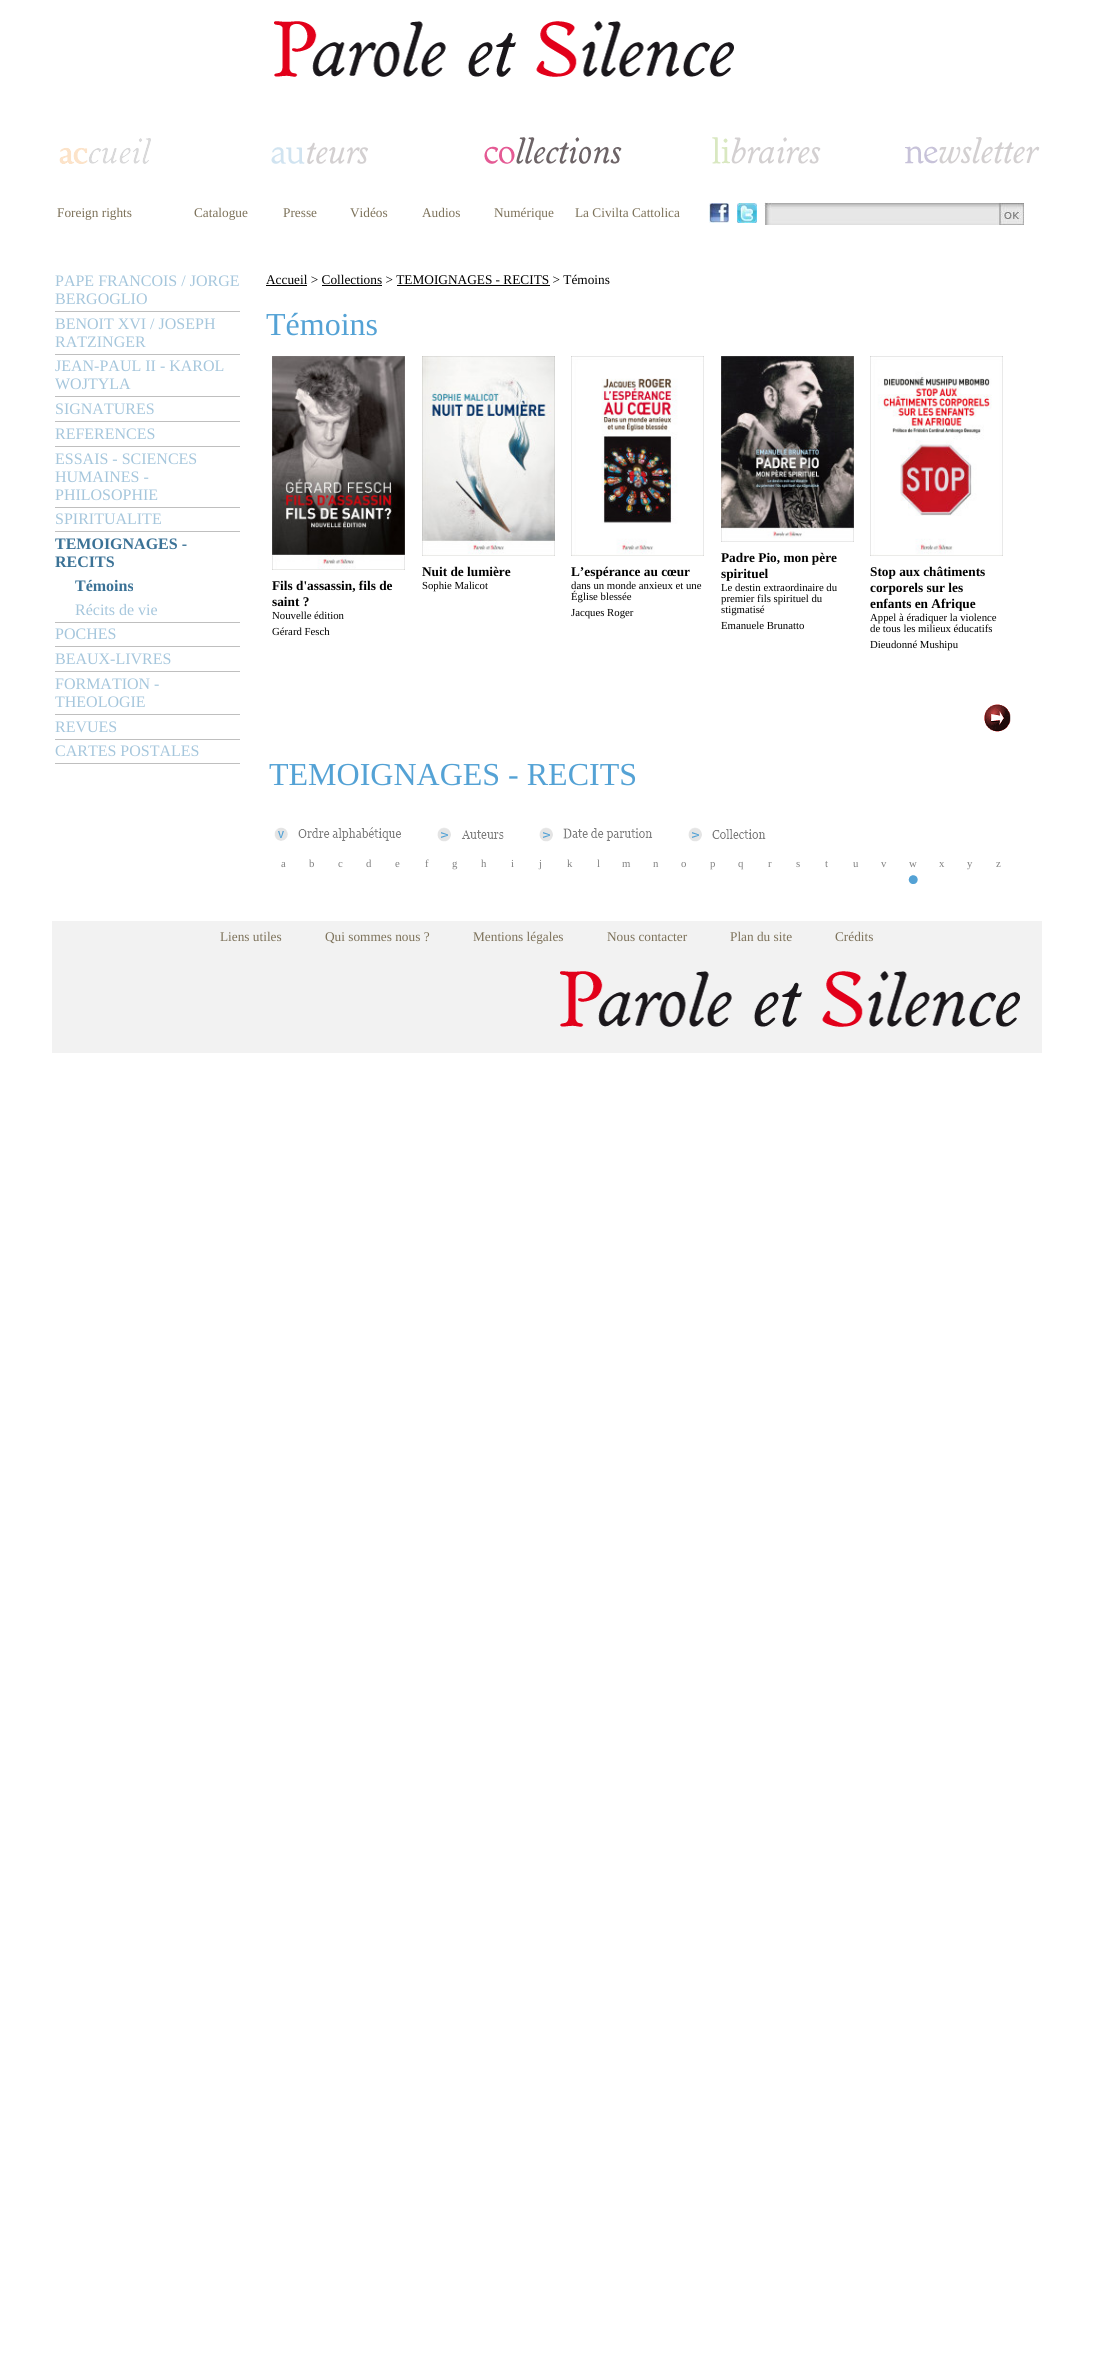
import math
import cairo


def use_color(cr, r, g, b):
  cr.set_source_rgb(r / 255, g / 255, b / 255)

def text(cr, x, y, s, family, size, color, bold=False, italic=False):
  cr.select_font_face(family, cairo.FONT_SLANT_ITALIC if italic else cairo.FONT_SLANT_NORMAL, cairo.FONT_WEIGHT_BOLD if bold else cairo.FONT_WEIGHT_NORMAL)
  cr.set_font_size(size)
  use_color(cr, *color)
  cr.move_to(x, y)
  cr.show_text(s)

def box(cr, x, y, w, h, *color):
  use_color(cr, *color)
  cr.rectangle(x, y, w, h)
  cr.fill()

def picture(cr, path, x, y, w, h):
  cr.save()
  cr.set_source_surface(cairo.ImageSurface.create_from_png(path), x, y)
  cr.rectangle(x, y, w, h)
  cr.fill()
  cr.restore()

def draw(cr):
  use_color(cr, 255, 255, 255)
  cr.paint()
  picture(cr, "img_01.png", 274, 21, 460, 56)
  picture(cr, "img_02.png", 59, 138, 92, 26)
  picture(cr, "img_03.png", 271, 142, 97, 22)
  picture(cr, "img_04.png", 484, 137, 138, 27)
  picture(cr, "img_05.png", 712, 137, 109, 27)
  picture(cr, "img_06.png", 905, 137, 135, 27)
  picture(cr, "img_07.png", 709, 203, 20, 20)
  picture(cr, "img_08.png", 737, 203, 20, 20)
  picture(cr, "img_09.png", 764, 202, 236, 23)
  picture(cr, "img_10.png", 1000, 203, 24, 22)
  box(cr, 55, 311, 185, 1, 191, 191, 191)
  box(cr, 55, 354, 185, 1, 191, 191, 191)
  box(cr, 55, 396, 185, 1, 191, 191, 191)
  box(cr, 55, 421, 185, 1, 191, 191, 191)
  box(cr, 55, 446, 185, 1, 191, 191, 191)
  box(cr, 55, 507, 185, 1, 191, 191, 191)
  box(cr, 55, 531, 185, 1, 191, 191, 191)
  box(cr, 55, 622, 185, 1, 191, 191, 191)
  box(cr, 55, 646, 185, 1, 191, 191, 191)
  box(cr, 55, 671, 185, 1, 191, 191, 191)
  box(cr, 55, 714, 185, 1, 191, 191, 191)
  box(cr, 55, 739, 185, 1, 191, 191, 191)
  box(cr, 55, 763, 185, 1, 191, 191, 191)
  box(cr, 266, 285, 41, 1, 0, 0, 0)
  box(cr, 322, 285, 60, 1, 0, 0, 0)
  box(cr, 397, 285, 153, 1, 0, 0, 0)
  picture(cr, "img_11.png", 272, 356, 133, 214)
  picture(cr, "img_12.png", 422, 356, 133, 200)
  picture(cr, "img_13.png", 571, 356, 133, 200)
  picture(cr, "img_14.png", 721, 356, 133, 186)
  picture(cr, "img_15.png", 870, 356, 133, 200)
  picture(cr, "img_16.png", 984, 704, 27, 28)
  picture(cr, "img_17.png", 274, 827, 14, 14)
  picture(cr, "img_18.png", 298, 827, 103, 14)
  picture(cr, "img_19.png", 437, 827, 14, 15)
  picture(cr, "img_20.png", 461, 830, 43, 9)
  picture(cr, "img_19.png", 539, 827, 14, 15)
  picture(cr, "img_21.png", 563, 828, 90, 13)
  picture(cr, "img_19.png", 688, 827, 14, 15)
  picture(cr, "img_22.png", 712, 829, 54, 10)
  picture(cr, "img_23.png", 908, 875, 10, 9)
  box(cr, 52, 921, 990, 132, 242, 242, 242)
  picture(cr, "img_24.png", 560, 971, 460, 56)
  text(cr, 57, 217, "Foreign rights", "Liberation Serif", 13.3, (124, 113, 89))
  text(cr, 194, 217, "Catalogue", "Liberation Serif", 13.3, (124, 113, 89))
  text(cr, 283, 217, "Presse", "Liberation Serif", 13.3, (124, 113, 89))
  text(cr, 350, 217, "Vidéos", "Liberation Serif", 13.3, (124, 113, 89))
  text(cr, 422, 217, "Audios", "Liberation Serif", 13.3, (124, 113, 89))
  text(cr, 494, 217, "Numérique", "Liberation Serif", 13.3, (124, 113, 89))
  text(cr, 575, 217, "La Civilta Cattolica", "Liberation Serif", 13.3, (124, 113, 89))
  text(cr, 55, 286, "PAPE FRANCOIS / JORGE", "Liberation Serif", 16, (165, 198, 220))
  text(cr, 55, 304, "BERGOGLIO", "Liberation Serif", 16, (165, 198, 220))
  text(cr, 55, 329, "BENOIT XVI / JOSEPH", "Liberation Serif", 16, (165, 198, 220))
  text(cr, 55, 347, "RATZINGER", "Liberation Serif", 16, (165, 198, 220))
  text(cr, 55, 371, "JEAN-PAUL II - KAROL", "Liberation Serif", 16, (165, 198, 220))
  text(cr, 55, 389, "WOJTYLA", "Liberation Serif", 16, (165, 198, 220))
  text(cr, 55, 414, "SIGNATURES", "Liberation Serif", 16, (165, 198, 220))
  text(cr, 55, 439, "REFERENCES", "Liberation Serif", 16, (165, 198, 220))
  text(cr, 55, 464, "ESSAIS - SCIENCES", "Liberation Serif", 16, (165, 198, 220))
  text(cr, 55, 482, "HUMAINES -", "Liberation Serif", 16, (165, 198, 220))
  text(cr, 55, 500, "PHILOSOPHIE", "Liberation Serif", 16, (165, 198, 220))
  text(cr, 55, 524, "SPIRITUALITE", "Liberation Serif", 16, (165, 198, 220))
  text(cr, 55, 549, "TEMOIGNAGES -", "Liberation Serif", 16, (59, 114, 150), bold=True)
  text(cr, 55, 567, "RECITS", "Liberation Serif", 16, (59, 114, 150), bold=True)
  text(cr, 75, 591, "Témoins", "Liberation Serif", 16, (59, 114, 150), bold=True)
  text(cr, 75, 615, "Récits de vie", "Liberation Serif", 16, (165, 198, 220))
  text(cr, 55, 639, "POCHES", "Liberation Serif", 16, (165, 198, 220))
  text(cr, 55, 664, "BEAUX-LIVRES", "Liberation Serif", 16, (165, 198, 220))
  text(cr, 55, 689, "FORMATION -", "Liberation Serif", 16, (165, 198, 220))
  text(cr, 55, 707, "THEOLOGIE", "Liberation Serif", 16, (165, 198, 220))
  text(cr, 55, 732, "REVUES", "Liberation Serif", 16, (165, 198, 220))
  text(cr, 55, 756, "CARTES POSTALES", "Liberation Serif", 16, (165, 198, 220))
  text(cr, 266, 284, "Accueil > Collections > TEMOIGNAGES - RECITS > Témoins", "Liberation Serif", 13.3, (0, 0, 0))
  text(cr, 266, 335, "Témoins", "Liberation Serif", 32, (84, 162, 213))
  text(cr, 272, 590, "Fils d'assassin, fils de", "Liberation Serif", 13.3, (0, 0, 0), bold=True)
  text(cr, 272, 606, "saint ?", "Liberation Serif", 13.3, (0, 0, 0), bold=True)
  text(cr, 272, 619, "Nouvelle édition", "Liberation Serif", 10.75, (0, 0, 0))
  text(cr, 272, 635, "Gérard Fesch", "Liberation Serif", 10.75, (0, 0, 0))
  text(cr, 422, 576, "Nuit de lumière", "Liberation Serif", 13.3, (0, 0, 0), bold=True)
  text(cr, 422, 589, "Sophie Malicot", "Liberation Serif", 10.75, (0, 0, 0))
  text(cr, 571, 576, "L’espérance au cœur", "Liberation Serif", 13.3, (0, 0, 0), bold=True)
  text(cr, 571, 589, "dans un monde anxieux et une", "Liberation Serif", 10.75, (0, 0, 0))
  text(cr, 571, 600, "Église blessée", "Liberation Serif", 10.75, (0, 0, 0))
  text(cr, 571, 616, "Jacques Roger", "Liberation Serif", 10.75, (0, 0, 0))
  text(cr, 721, 562, "Padre Pio, mon père", "Liberation Serif", 13.3, (0, 0, 0), bold=True)
  text(cr, 721, 578, "spirituel", "Liberation Serif", 13.3, (0, 0, 0), bold=True)
  text(cr, 721, 591, "Le destin extraordinaire du", "Liberation Serif", 10.75, (0, 0, 0))
  text(cr, 721, 602, "premier fils spirituel du", "Liberation Serif", 10.75, (0, 0, 0))
  text(cr, 721, 613, "stigmatisé", "Liberation Serif", 10.75, (0, 0, 0))
  text(cr, 721, 629, "Emanuele Brunatto", "Liberation Serif", 10.75, (0, 0, 0))
  text(cr, 870, 576, "Stop aux châtiments", "Liberation Serif", 13.3, (0, 0, 0), bold=True)
  text(cr, 870, 592, "corporels sur les", "Liberation Serif", 13.3, (0, 0, 0), bold=True)
  text(cr, 870, 608, "enfants en Afrique", "Liberation Serif", 13.3, (0, 0, 0), bold=True)
  text(cr, 870, 621, "Appel à éradiquer la violence", "Liberation Serif", 10.75, (0, 0, 0))
  text(cr, 870, 632, "de tous les milieux éducatifs", "Liberation Serif", 10.75, (0, 0, 0))
  text(cr, 870, 648, "Dieudonné Mushipu", "Liberation Serif", 10.75, (0, 0, 0))
  text(cr, 269, 785, "TEMOIGNAGES - RECITS", "Liberation Serif", 32, (84, 162, 213))
  text(cr, 281, 867, "a", "Liberation Serif", 10.75, (128, 128, 128))
  text(cr, 309, 867, "b", "Liberation Serif", 10.75, (128, 128, 128))
  text(cr, 338, 867, "c", "Liberation Serif", 10.75, (128, 128, 128))
  text(cr, 366, 867, "d", "Liberation Serif", 10.75, (128, 128, 128))
  text(cr, 395, 867, "e", "Liberation Serif", 10.75, (128, 128, 128))
  text(cr, 425, 867, "f", "Liberation Serif", 10.75, (128, 128, 128))
  text(cr, 452, 867, "g", "Liberation Serif", 10.75, (128, 128, 128))
  text(cr, 481, 867, "h", "Liberation Serif", 10.75, (128, 128, 128))
  text(cr, 511, 867, "i", "Liberation Serif", 10.75, (128, 128, 128))
  text(cr, 539, 867, "j", "Liberation Serif", 10.75, (128, 128, 128))
  text(cr, 567, 867, "k", "Liberation Serif", 10.75, (128, 128, 128))
  text(cr, 597, 867, "l", "Liberation Serif", 10.75, (128, 128, 128))
  text(cr, 622, 867, "m", "Liberation Serif", 10.75, (128, 128, 128))
  text(cr, 653, 867, "n", "Liberation Serif", 10.75, (128, 128, 128))
  text(cr, 681, 867, "o", "Liberation Serif", 10.75, (128, 128, 128))
  text(cr, 710, 867, "p", "Liberation Serif", 10.75, (128, 128, 128))
  text(cr, 738, 867, "q", "Liberation Serif", 10.75, (128, 128, 128))
  text(cr, 768, 867, "r", "Liberation Serif", 10.75, (128, 128, 128))
  text(cr, 796, 867, "s", "Liberation Serif", 10.75, (128, 128, 128))
  text(cr, 825, 867, "t", "Liberation Serif", 10.75, (128, 128, 128))
  text(cr, 853, 867, "u", "Liberation Serif", 10.75, (128, 128, 128))
  text(cr, 881, 867, "v", "Liberation Serif", 10.75, (128, 128, 128))
  text(cr, 909, 867, "w", "Liberation Serif", 10.75, (128, 128, 128))
  text(cr, 939, 867, "x", "Liberation Serif", 10.75, (128, 128, 128))
  text(cr, 967, 867, "y", "Liberation Serif", 10.75, (128, 128, 128))
  text(cr, 996, 867, "z", "Liberation Serif", 10.75, (128, 128, 128))
  text(cr, 220, 941, "Liens utiles", "Liberation Serif", 13.3, (124, 113, 89))
  text(cr, 325, 941, "Qui sommes nous ?", "Liberation Serif", 13.3, (124, 113, 89))
  text(cr, 473, 941, "Mentions légales", "Liberation Serif", 13.3, (124, 113, 89))
  text(cr, 607, 941, "Nous contacter", "Liberation Serif", 13.3, (124, 113, 89))
  text(cr, 730, 941, "Plan du site", "Liberation Serif", 13.3, (124, 113, 89))
  text(cr, 835, 941, "Crédits", "Liberation Serif", 13.3, (124, 113, 89))


surface = cairo.ImageSurface(cairo.FORMAT_RGB24, 1100, 2367)
cr = cairo.Context(surface)
options = cairo.FontOptions()
options.set_hint_metrics(cairo.HINT_METRICS_OFF)
options.set_hint_style(cairo.HINT_STYLE_NONE)
cr.set_font_options(options)
cr.set_miter_limit(4)
draw(cr)
surface.write_to_png("out.png")
